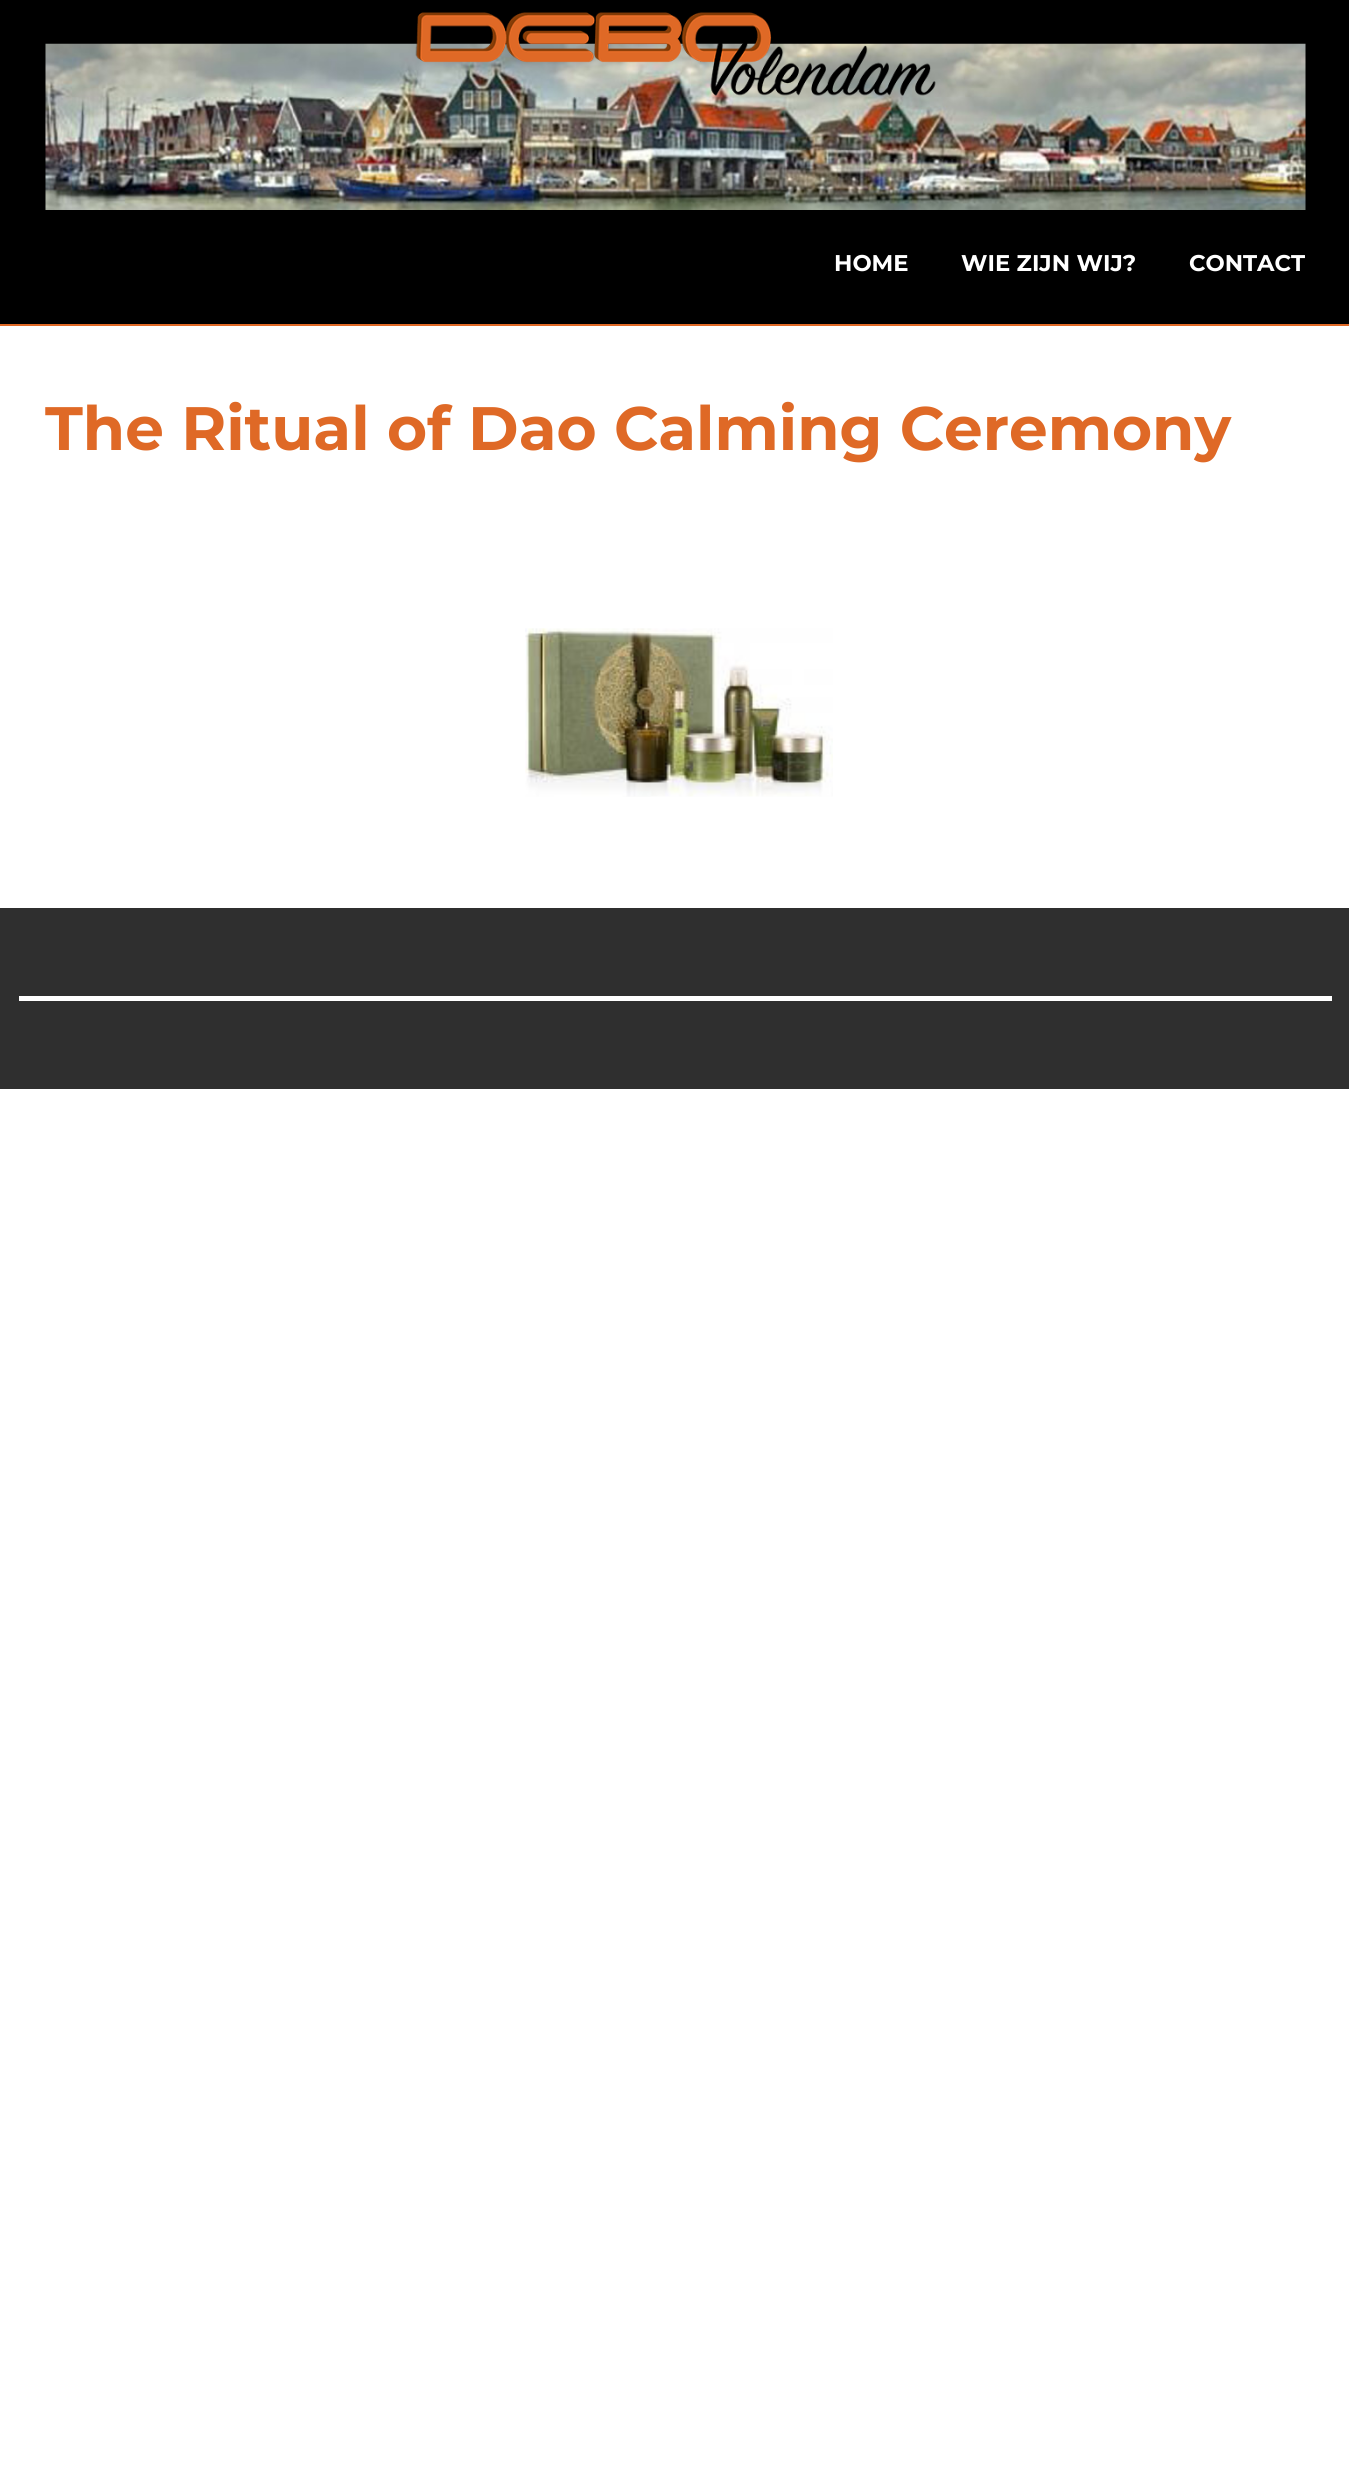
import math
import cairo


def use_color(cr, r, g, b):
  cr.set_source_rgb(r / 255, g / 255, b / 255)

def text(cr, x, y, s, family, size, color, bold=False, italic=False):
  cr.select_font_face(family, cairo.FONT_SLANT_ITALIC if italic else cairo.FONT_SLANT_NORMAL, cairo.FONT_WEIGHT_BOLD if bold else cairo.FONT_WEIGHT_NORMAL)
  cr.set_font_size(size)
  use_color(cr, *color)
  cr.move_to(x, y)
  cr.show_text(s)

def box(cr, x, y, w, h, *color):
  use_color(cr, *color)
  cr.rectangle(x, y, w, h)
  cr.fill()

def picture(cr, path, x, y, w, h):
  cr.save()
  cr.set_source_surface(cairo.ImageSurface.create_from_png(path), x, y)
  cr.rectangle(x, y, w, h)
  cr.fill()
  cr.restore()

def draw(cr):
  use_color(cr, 255, 255, 255)
  cr.paint()
  box(cr, 0, 0, 1349, 324, 0, 0, 0)
  box(cr, 0, 324, 1349, 2, 223, 105, 38)
  picture(cr, "img_01.png", 45, 43, 1261, 167)
  picture(cr, "img_02.png", 415, 12, 521, 86)
  picture(cr, "img_03.png", 525, 628, 308, 169)
  box(cr, 0, 908, 1349, 181, 47, 47, 47)
  box(cr, 19, 996, 1313, 5, 255, 255, 255)
  text(cr, 834, 271, "HOME", "Montserrat", 22.75, (255, 255, 255), bold=True)
  text(cr, 961, 271, "WIE ZIJN WIJ?", "Montserrat", 22.75, (255, 255, 255), bold=True)
  text(cr, 1189, 271, "CONTACT", "Montserrat", 22.75, (255, 255, 255), bold=True)
  text(cr, 45, 450, "The Ritual of Dao Calming Ceremony", "Montserrat", 61.25, (223, 105, 38), bold=True)


surface = cairo.ImageSurface(cairo.FORMAT_RGB24, 1349, 2472)
cr = cairo.Context(surface)
options = cairo.FontOptions()
options.set_hint_metrics(cairo.HINT_METRICS_OFF)
options.set_hint_style(cairo.HINT_STYLE_NONE)
cr.set_font_options(options)
cr.set_miter_limit(4)
draw(cr)
surface.write_to_png("out.png")
